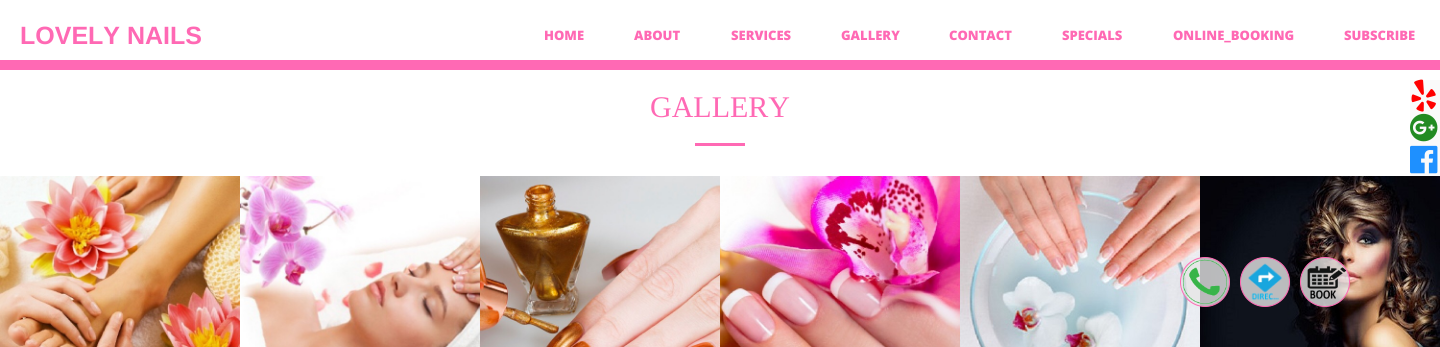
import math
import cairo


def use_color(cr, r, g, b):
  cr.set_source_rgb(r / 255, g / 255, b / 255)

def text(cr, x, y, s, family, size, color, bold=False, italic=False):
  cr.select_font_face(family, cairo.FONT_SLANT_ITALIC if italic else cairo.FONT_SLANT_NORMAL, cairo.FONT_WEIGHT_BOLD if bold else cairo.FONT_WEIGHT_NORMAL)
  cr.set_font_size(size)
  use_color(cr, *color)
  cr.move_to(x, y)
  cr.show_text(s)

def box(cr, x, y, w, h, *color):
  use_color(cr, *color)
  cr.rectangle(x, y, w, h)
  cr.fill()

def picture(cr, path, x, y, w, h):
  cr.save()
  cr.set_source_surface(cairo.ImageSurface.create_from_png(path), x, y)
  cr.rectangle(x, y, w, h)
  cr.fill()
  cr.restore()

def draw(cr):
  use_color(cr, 255, 255, 255)
  cr.paint()
  box(cr, 0, 60, 1440, 10, 255, 105, 180)
  box(cr, 695, 143, 50, 3, 255, 105, 180)
  picture(cr, "img_01.png", 0, 176, 240, 171)
  picture(cr, "img_02.png", 240, 176, 240, 171)
  picture(cr, "img_03.png", 480, 176, 240, 171)
  picture(cr, "img_04.png", 720, 176, 240, 171)
  picture(cr, "img_05.png", 960, 176, 240, 171)
  picture(cr, "img_06.png", 1200, 176, 240, 171)
  box(cr, 1410, 80, 30, 96, 250, 250, 250)
  picture(cr, "img_07.png", 1411, 79, 25, 33)
  picture(cr, "img_08.png", 1410, 113, 28, 29)
  picture(cr, "img_09.png", 1410, 145, 28, 29)
  cr.set_source_rgba(0.902, 0.902, 0.902, 0.8)
  cr.arc(1205, 282, 24.5, 0, 2 * math.pi)
  cr.fill_preserve()
  use_color(cr, 255, 105, 180)
  cr.set_line_width(1)
  cr.stroke()
  picture(cr, "img_10.png", 1183, 259, 44, 45)
  cr.set_source_rgba(0.902, 0.902, 0.902, 0.8)
  cr.arc(1265, 282, 24.5, 0, 2 * math.pi)
  cr.fill_preserve()
  use_color(cr, 255, 105, 180)
  cr.stroke()
  picture(cr, "img_11.png", 1248, 263, 35, 38)
  cr.set_source_rgba(0.902, 0.902, 0.902, 0.8)
  cr.arc(1325, 282, 24.5, 0, 2 * math.pi)
  cr.fill_preserve()
  use_color(cr, 255, 105, 180)
  cr.stroke()
  picture(cr, "img_12.png", 1307, 265, 40, 34)
  text(cr, 20, 44, "LOVELY NAILS", "Liberation Sans", 25, (255, 105, 180), bold=True)
  text(cr, 544, 40, "HOME", "Open Sans ExtraBold", 13, (255, 105, 180))
  text(cr, 634, 40, "ABOUT", "Open Sans ExtraBold", 13, (255, 105, 180))
  text(cr, 731, 40, "SERVICES", "Open Sans ExtraBold", 13, (255, 105, 180))
  text(cr, 841, 40, "GALLERY", "Open Sans ExtraBold", 13, (255, 105, 180))
  text(cr, 949, 40, "CONTACT", "Open Sans ExtraBold", 13, (255, 105, 180))
  text(cr, 1062, 40, "SPECIALS", "Open Sans ExtraBold", 13, (255, 105, 180))
  text(cr, 1173, 40, "ONLINE_BOOKING", "Open Sans ExtraBold", 13, (255, 105, 180))
  text(cr, 1344, 40, "SUBSCRIBE", "Open Sans ExtraBold", 13, (255, 105, 180))
  text(cr, 650, 117, "GALLERY", "Liberation Serif", 30, (255, 105, 180))


surface = cairo.ImageSurface(cairo.FORMAT_RGB24, 1440, 347)
cr = cairo.Context(surface)
options = cairo.FontOptions()
options.set_hint_metrics(cairo.HINT_METRICS_OFF)
options.set_hint_style(cairo.HINT_STYLE_NONE)
cr.set_font_options(options)
cr.set_miter_limit(4)
draw(cr)
surface.write_to_png("out.png")
